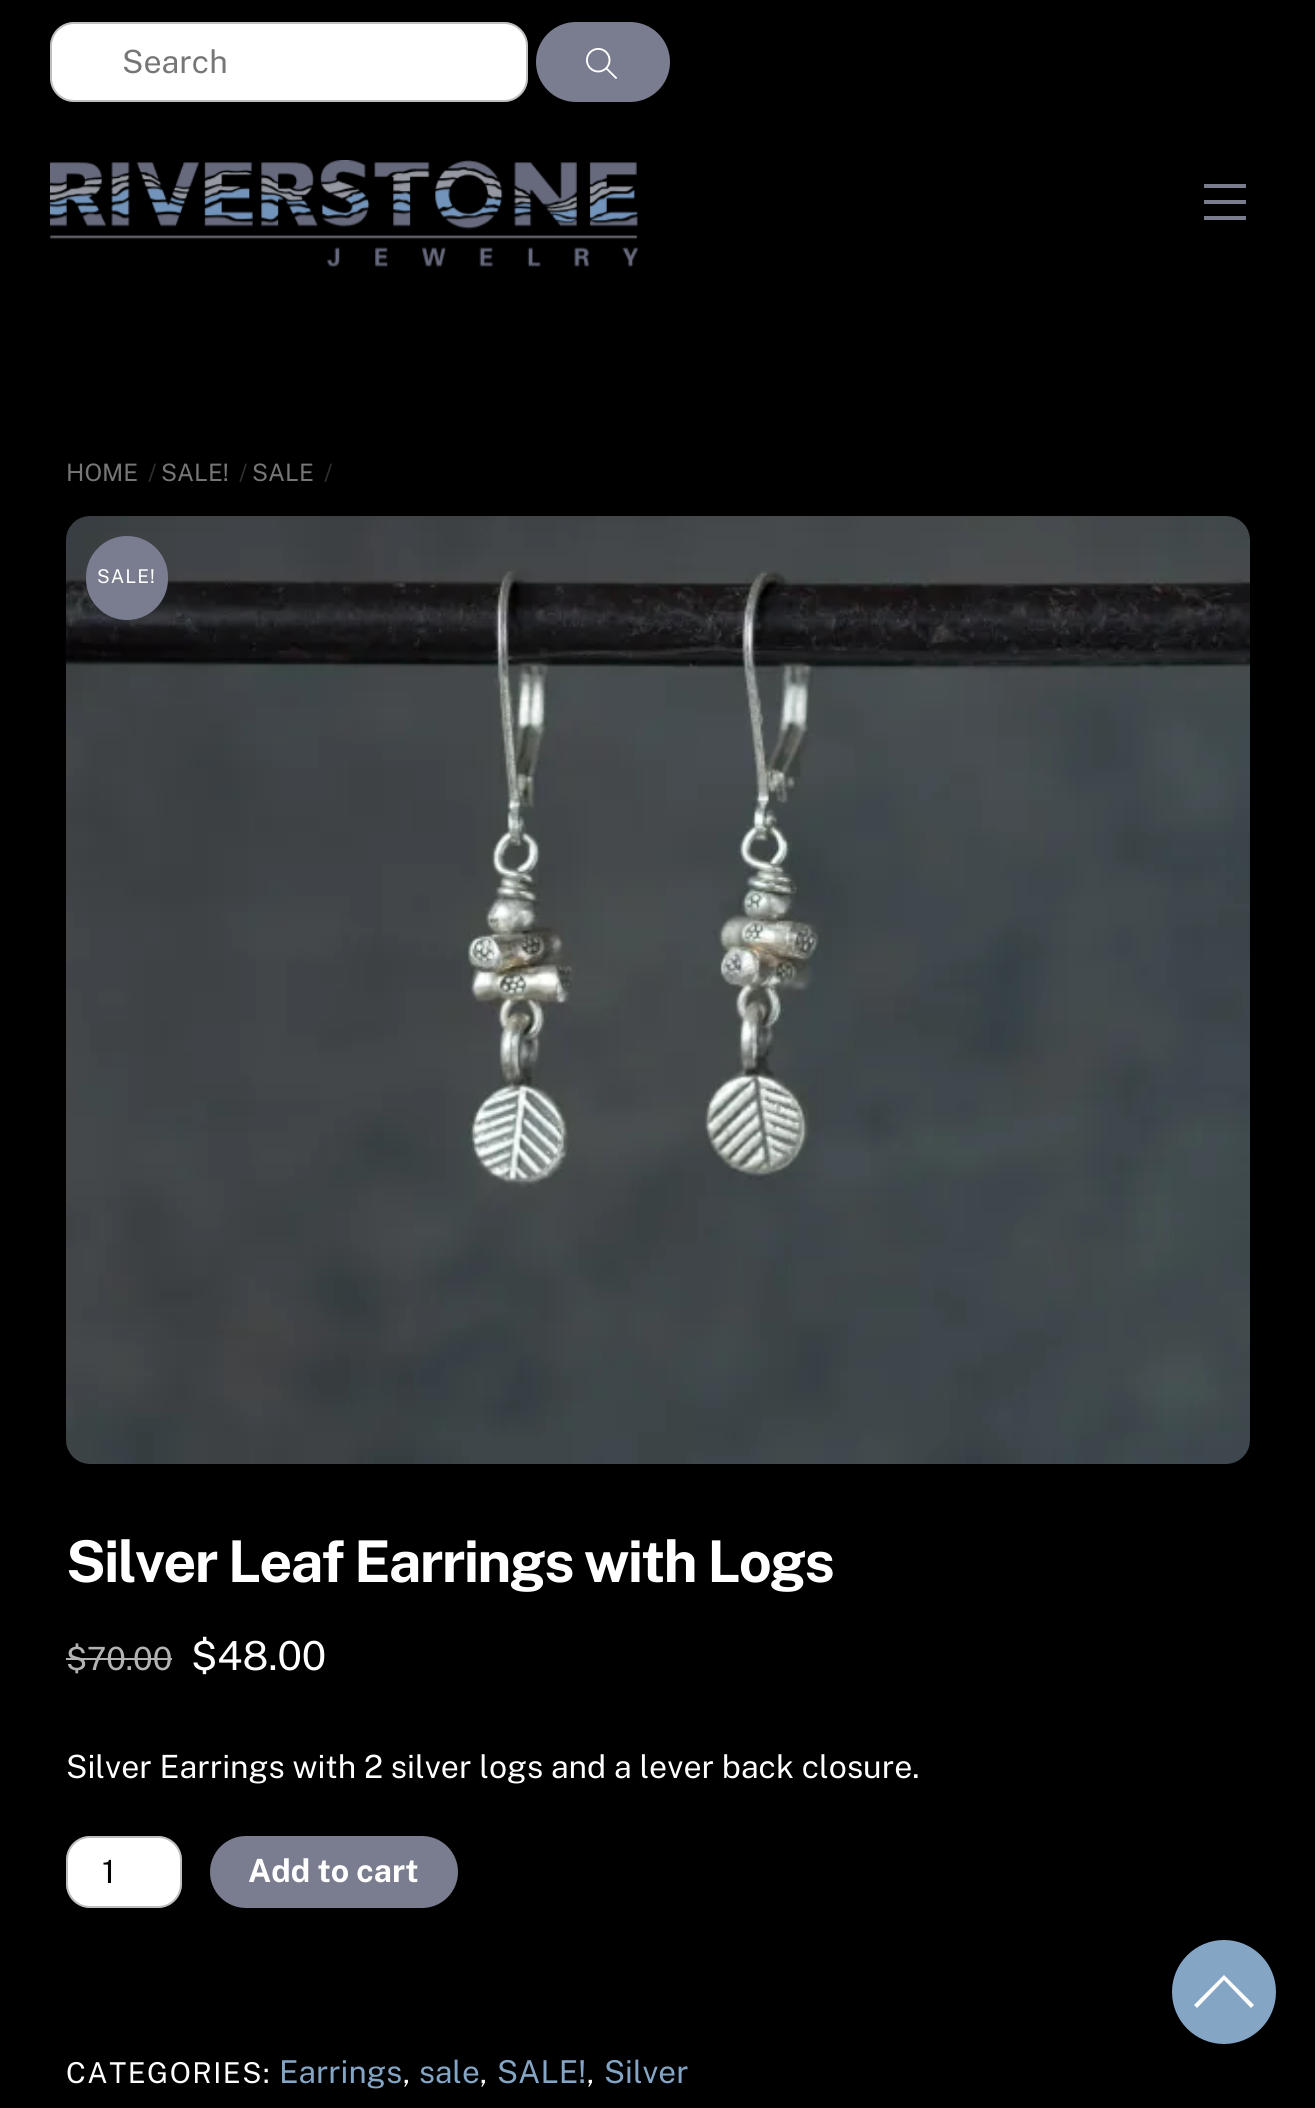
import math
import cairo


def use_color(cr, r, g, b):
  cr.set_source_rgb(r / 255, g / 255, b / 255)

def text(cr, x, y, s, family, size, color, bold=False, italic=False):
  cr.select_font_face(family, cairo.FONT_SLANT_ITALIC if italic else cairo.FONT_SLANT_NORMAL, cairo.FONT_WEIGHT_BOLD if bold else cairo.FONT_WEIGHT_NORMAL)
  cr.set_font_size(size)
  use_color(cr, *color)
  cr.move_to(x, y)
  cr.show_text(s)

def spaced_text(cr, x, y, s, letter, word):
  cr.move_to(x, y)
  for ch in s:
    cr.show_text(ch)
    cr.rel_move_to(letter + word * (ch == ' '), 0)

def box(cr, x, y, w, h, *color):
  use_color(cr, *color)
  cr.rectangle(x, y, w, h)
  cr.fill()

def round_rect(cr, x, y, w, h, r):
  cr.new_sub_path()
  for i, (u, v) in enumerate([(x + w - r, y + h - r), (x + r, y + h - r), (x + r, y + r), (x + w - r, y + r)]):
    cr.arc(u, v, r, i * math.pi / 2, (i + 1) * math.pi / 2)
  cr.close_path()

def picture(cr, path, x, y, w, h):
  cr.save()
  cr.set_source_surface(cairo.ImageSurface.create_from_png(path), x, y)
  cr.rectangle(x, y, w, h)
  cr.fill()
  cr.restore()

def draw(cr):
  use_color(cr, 0, 0, 0)
  cr.paint()
  use_color(cr, 255, 255, 255)
  round_rect(cr, 50, 22, 478, 80, 24)
  cr.fill()
  round_rect(cr, 51, 23, 476, 78, 23)
  cr.set_source_rgba(0, 0, 0, 0.25)
  cr.stroke()
  use_color(cr, 122, 125, 143)
  round_rect(cr, 536, 22, 134, 80, 40)
  cr.fill()
  picture(cr, "img_01.png", 586, 48, 32, 31)
  picture(cr, "img_02.png", 50, 160, 589, 107)
  box(cr, 1204, 216, 42, 4, 122, 125, 143)
  box(cr, 1204, 184, 42, 4, 122, 125, 143)
  box(cr, 1204, 200, 42, 4, 122, 125, 143)
  picture(cr, "img_03.png", 66, 516, 1184, 948)
  round_rect(cr, 86, 536, 82, 84, 41)
  cr.fill()
  box(cr, 66, 1658, 106, 2, 179, 179, 179)
  use_color(cr, 255, 255, 255)
  round_rect(cr, 66, 1836, 116, 72, 24)
  cr.fill()
  round_rect(cr, 67, 1837, 114, 70, 23)
  cr.set_source_rgba(0, 0, 0, 0.25)
  cr.stroke()
  use_color(cr, 122, 125, 143)
  round_rect(cr, 210, 1836, 248, 72, 36)
  cr.fill()
  use_color(cr, 133, 165, 197)
  cr.arc(1224, 1992, 52, 0, 2 * math.pi)
  cr.fill()
  use_color(cr, 255, 255, 255)
  cr.new_path()
  cr.move_to(1254, 2005)
  cr.line_to(1224, 1975)
  cr.line_to(1194, 2005)
  cr.line_to(1197, 2008)
  cr.line_to(1224, 1980)
  cr.line_to(1251, 2008)
  cr.close_path()
  cr.fill()
  text(cr, 122, 73, "Search", "Public Sans", 32, (118, 118, 118))
  text(cr, 66, 481, "HOME", "Public Sans", 24, (118, 118, 118))
  text(cr, 148, 481, "/", "Public Sans", 24, (47, 47, 47))
  text(cr, 161, 481, "SALE!", "Public Sans", 24, (118, 118, 118))
  text(cr, 239, 481, "/", "Public Sans", 24, (47, 47, 47))
  text(cr, 252, 481, "SALE", "Public Sans", 24, (118, 118, 118))
  text(cr, 324, 481, "/", "Public Sans", 24, (47, 47, 47))
  cr.set_font_size(19)
  use_color(cr, 255, 255, 255)
  spaced_text(cr, 97, 583, "SALE!", 1, 0)
  cr.select_font_face("Public Sans", cairo.FONT_SLANT_NORMAL, cairo.FONT_WEIGHT_BOLD)
  cr.set_font_size(57.6)
  spaced_text(cr, 66, 1582, "Silver Leaf Earrings with Logs", -1.75, 0)
  text(cr, 66, 1670, "$70.00", "Public Sans", 32, (179, 179, 179))
  text(cr, 191, 1670, "$48.00", "Public Sans", 40, (255, 255, 255))
  text(cr, 66, 1778, "Silver Earrings with 2 silver logs and a lever back closure.", "Public Sans", 32, (255, 255, 255))
  text(cr, 102, 1883, "1", "Public Sans", 32, (0, 0, 0))
  text(cr, 248, 1882, "Add to cart", "Public Sans", 32, (255, 255, 255), bold=True)
  cr.select_font_face("Public Sans")
  cr.set_font_size(28.75)
  spaced_text(cr, 66, 2083, "CATEGORIES:", 1.5, 0)
  text(cr, 279, 2083, "Earrings", "Public Sans", 31.5, (133, 165, 197))
  cr.set_font_size(28.75)
  use_color(cr, 255, 255, 255)
  spaced_text(cr, 403, 2083, ",", 1.5, 0)
  text(cr, 419, 2083, "sale", "Public Sans", 31.5, (133, 165, 197))
  cr.set_font_size(28.75)
  use_color(cr, 255, 255, 255)
  spaced_text(cr, 480, 2083, ",", 1.5, 0)
  text(cr, 497, 2083, "SALE!", "Public Sans", 31.5, (133, 165, 197))
  cr.set_font_size(28.75)
  use_color(cr, 255, 255, 255)
  spaced_text(cr, 587, 2083, ",", 1.5, 0)
  text(cr, 604, 2083, "Silver", "Public Sans", 31.5, (133, 165, 197))


surface = cairo.ImageSurface(cairo.FORMAT_RGB24, 1315, 2108)
cr = cairo.Context(surface)
options = cairo.FontOptions()
options.set_hint_metrics(cairo.HINT_METRICS_OFF)
options.set_hint_style(cairo.HINT_STYLE_NONE)
cr.set_font_options(options)
cr.set_miter_limit(4)
draw(cr)
surface.write_to_png("out.png")
